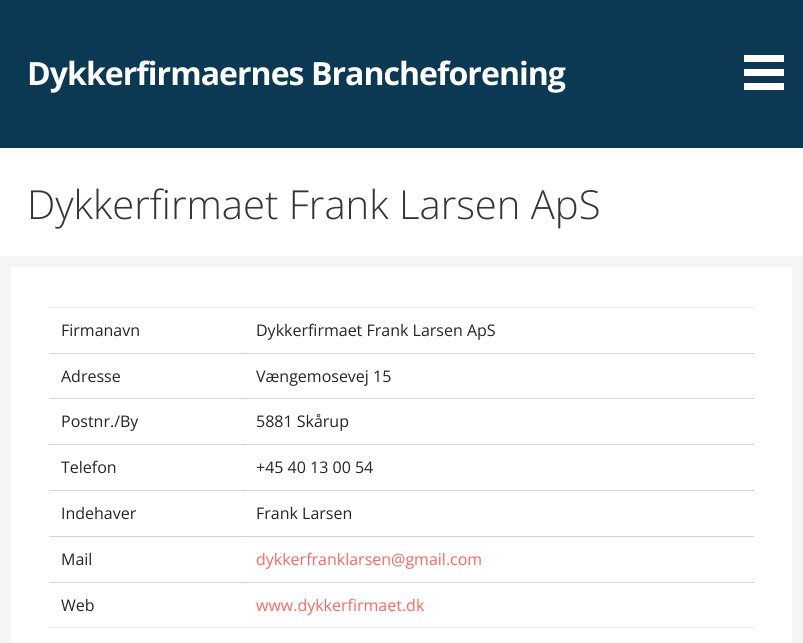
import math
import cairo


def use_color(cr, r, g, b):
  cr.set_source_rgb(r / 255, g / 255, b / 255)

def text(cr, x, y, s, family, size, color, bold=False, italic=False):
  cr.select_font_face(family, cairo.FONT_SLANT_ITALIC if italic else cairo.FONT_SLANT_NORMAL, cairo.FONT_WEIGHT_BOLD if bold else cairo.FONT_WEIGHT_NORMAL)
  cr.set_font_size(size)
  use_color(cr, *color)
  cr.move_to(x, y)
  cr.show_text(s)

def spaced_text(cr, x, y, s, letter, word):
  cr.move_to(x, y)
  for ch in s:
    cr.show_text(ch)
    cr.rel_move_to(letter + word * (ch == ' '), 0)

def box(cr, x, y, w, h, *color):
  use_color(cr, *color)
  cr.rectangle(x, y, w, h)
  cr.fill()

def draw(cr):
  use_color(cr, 245, 245, 245)
  cr.paint()
  box(cr, 0, 0, 803, 148, 11, 57, 84)
  box(cr, 744, 55, 40, 7, 255, 255, 255)
  box(cr, 744, 69, 40, 7, 255, 255, 255)
  box(cr, 744, 83, 40, 7, 255, 255, 255)
  box(cr, 0, 148, 803, 108, 255, 255, 255)
  box(cr, 11, 267, 781, 376, 255, 255, 255)
  box(cr, 49, 307, 705, 1, 233, 233, 233)
  box(cr, 49, 353, 705, 1, 213, 213, 213)
  box(cr, 49, 398, 705, 1, 213, 213, 213)
  box(cr, 49, 444, 705, 1, 213, 213, 213)
  box(cr, 49, 490, 705, 1, 213, 213, 213)
  box(cr, 49, 536, 705, 1, 213, 213, 213)
  box(cr, 49, 627, 705, 1, 233, 233, 233)
  box(cr, 49, 582, 705, 1, 213, 213, 213)
  box(cr, 243, 307, 1, 1, 213, 213, 213)
  box(cr, 243, 353, 1, 1, 179, 179, 179)
  box(cr, 243, 398, 1, 1, 179, 179, 179)
  box(cr, 243, 444, 1, 1, 179, 179, 179)
  box(cr, 243, 490, 1, 1, 179, 179, 179)
  box(cr, 243, 536, 1, 1, 179, 179, 179)
  box(cr, 243, 582, 1, 1, 179, 179, 179)
  box(cr, 243, 627, 1, 1, 213, 213, 213)
  cr.select_font_face("Open Sans", cairo.FONT_SLANT_NORMAL, cairo.FONT_WEIGHT_BOLD)
  cr.set_font_size(32)
  use_color(cr, 255, 255, 255)
  spaced_text(cr, 27, 85, "Dykkerfirmaernes Brancheforening", -0.95, 0)
  text(cr, 27, 219, "Dykkerfirmaet Frank Larsen ApS", "Open Sans Light", 40, (53, 53, 53))
  text(cr, 61, 336, "Firmanavn", "Open Sans", 16, (37, 37, 37))
  text(cr, 256, 336, "Dykkerfirmaet Frank Larsen ApS", "Open Sans", 16, (37, 37, 37))
  text(cr, 61, 382, "Adresse", "Open Sans", 16, (37, 37, 37))
  text(cr, 256, 382, "Vængemosevej 15", "Open Sans", 16, (37, 37, 37))
  text(cr, 61, 427, "Postnr./By", "Open Sans", 16, (37, 37, 37))
  text(cr, 256, 427, "5881 Skårup", "Open Sans", 16, (37, 37, 37))
  text(cr, 61, 473, "Telefon", "Open Sans", 16, (37, 37, 37))
  text(cr, 256, 473, "+45 40 13 00 54", "Open Sans", 16, (37, 37, 37))
  text(cr, 61, 519, "Indehaver", "Open Sans", 16, (37, 37, 37))
  text(cr, 256, 519, "Frank Larsen", "Open Sans", 16, (37, 37, 37))
  text(cr, 61, 565, "Mail", "Open Sans", 16, (37, 37, 37))
  text(cr, 256, 565, "dykkerfranklarsen@gmail.com", "Open Sans", 16, (255, 102, 99))
  text(cr, 61, 611, "Web", "Open Sans", 16, (37, 37, 37))
  text(cr, 256, 611, "www.dykkerfirmaet.dk", "Open Sans", 16, (255, 102, 99))


surface = cairo.ImageSurface(cairo.FORMAT_RGB24, 803, 643)
cr = cairo.Context(surface)
options = cairo.FontOptions()
options.set_hint_metrics(cairo.HINT_METRICS_OFF)
options.set_hint_style(cairo.HINT_STYLE_NONE)
cr.set_font_options(options)
cr.set_miter_limit(4)
draw(cr)
surface.write_to_png("out.png")
